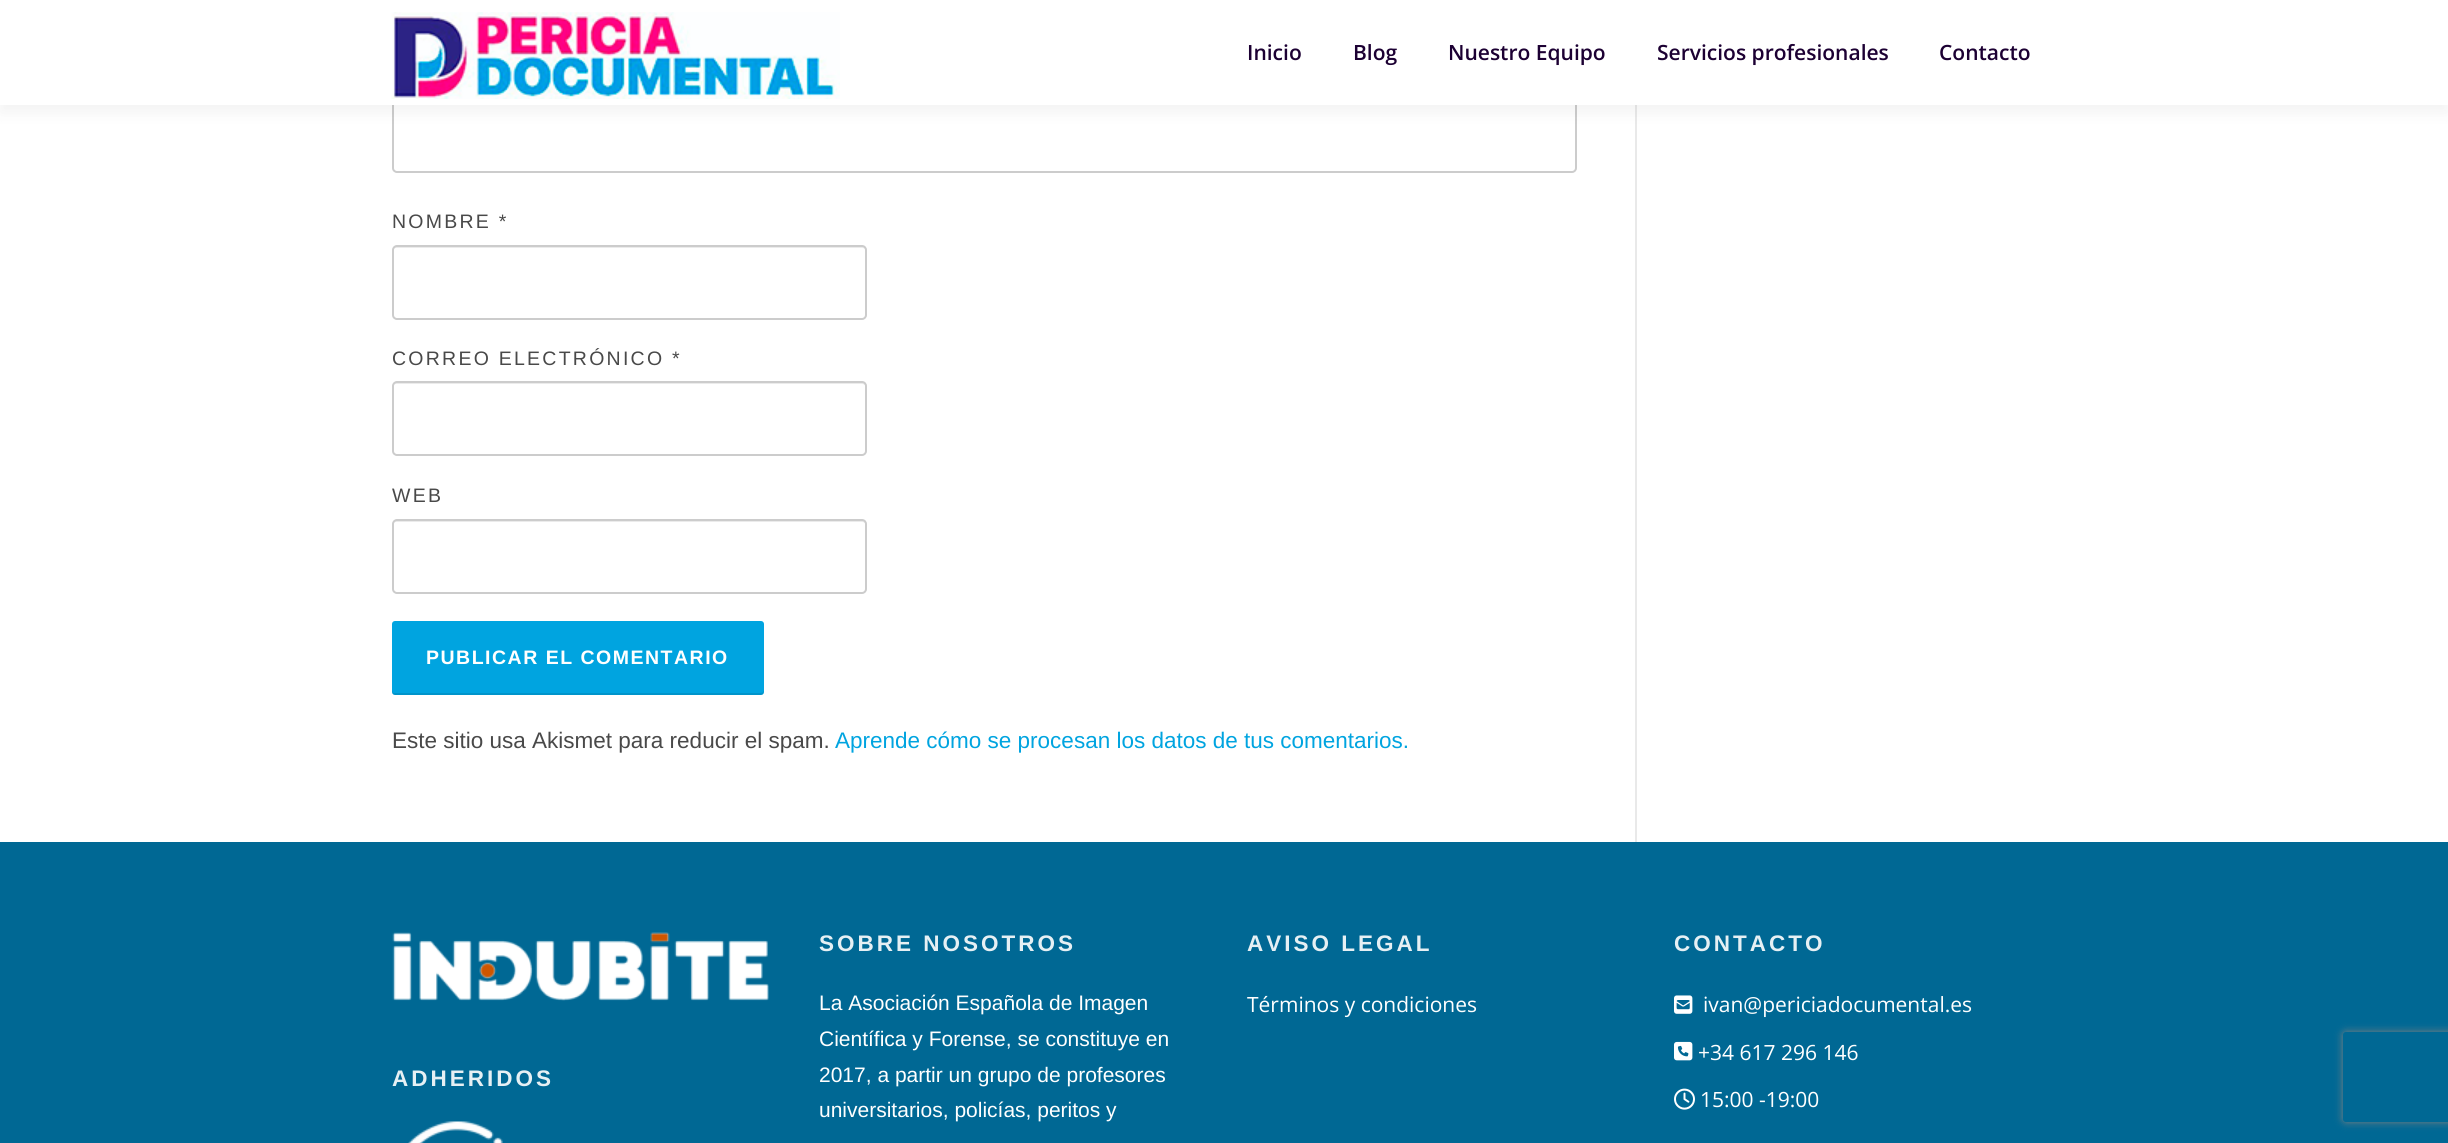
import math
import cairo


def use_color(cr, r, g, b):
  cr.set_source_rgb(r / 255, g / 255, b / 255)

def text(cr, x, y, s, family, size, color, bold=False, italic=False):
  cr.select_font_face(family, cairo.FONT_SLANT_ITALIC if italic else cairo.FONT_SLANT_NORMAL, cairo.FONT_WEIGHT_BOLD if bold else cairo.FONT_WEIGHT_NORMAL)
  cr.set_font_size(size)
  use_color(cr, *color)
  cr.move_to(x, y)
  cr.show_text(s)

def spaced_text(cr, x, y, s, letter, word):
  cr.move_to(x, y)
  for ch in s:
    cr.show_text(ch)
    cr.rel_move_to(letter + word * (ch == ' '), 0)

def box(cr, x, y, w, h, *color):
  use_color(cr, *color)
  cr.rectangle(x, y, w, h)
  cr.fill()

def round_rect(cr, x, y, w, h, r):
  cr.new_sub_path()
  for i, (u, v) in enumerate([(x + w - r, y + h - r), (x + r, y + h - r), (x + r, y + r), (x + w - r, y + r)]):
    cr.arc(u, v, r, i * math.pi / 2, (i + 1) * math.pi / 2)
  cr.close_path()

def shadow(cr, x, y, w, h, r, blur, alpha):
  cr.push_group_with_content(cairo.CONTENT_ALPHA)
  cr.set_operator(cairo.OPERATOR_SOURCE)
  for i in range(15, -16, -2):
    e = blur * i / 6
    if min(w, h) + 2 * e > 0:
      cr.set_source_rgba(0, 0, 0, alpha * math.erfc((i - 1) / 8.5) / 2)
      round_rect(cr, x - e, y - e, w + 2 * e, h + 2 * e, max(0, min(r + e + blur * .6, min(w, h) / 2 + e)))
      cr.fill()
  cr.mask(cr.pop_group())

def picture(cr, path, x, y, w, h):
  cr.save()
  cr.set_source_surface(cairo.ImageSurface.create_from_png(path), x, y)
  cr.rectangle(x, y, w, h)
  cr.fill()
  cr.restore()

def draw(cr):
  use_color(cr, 255, 255, 255)
  cr.paint()
  box(cr, 1635, 105, 2, 737, 233, 233, 233)
  round_rect(cr, 393, -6, 1183, 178, 4)
  use_color(cr, 204, 204, 204)
  cr.stroke()
  use_color(cr, 50, 50, 50)
  shadow(cr, 0, 8, 2448, 105, 0, 7.5, 0.06)
  box(cr, 0, 0, 2448, 105, 255, 255, 255)
  picture(cr, "img_01.png", 391, 12, 449, 87)
  use_color(cr, 235, 235, 235)
  cr.new_path()
  cr.move_to(396, 248)
  cr.line_to(862, 248)
  cr.curve_to(864, 248, 866, 249, 866, 250)
  cr.curve_to(866, 248, 866, 247, 864, 246)
  cr.line_to(395, 246)
  cr.line_to(393, 248)
  cr.line_to(393, 250)
  cr.curve_to(393, 249, 394, 248, 396, 248)
  cr.close_path()
  cr.fill()
  round_rect(cr, 393, 246, 473, 73, 4)
  use_color(cr, 204, 204, 204)
  cr.stroke()
  use_color(cr, 235, 235, 235)
  cr.new_path()
  cr.move_to(396, 384)
  cr.line_to(862, 384)
  cr.curve_to(864, 384, 866, 385, 866, 387)
  cr.curve_to(866, 385, 866, 384, 864, 383)
  cr.line_to(395, 383)
  cr.line_to(393, 385)
  cr.line_to(393, 387)
  cr.curve_to(393, 385, 394, 384, 396, 384)
  cr.close_path()
  cr.fill()
  round_rect(cr, 393, 382, 473, 73, 4)
  use_color(cr, 204, 204, 204)
  cr.stroke()
  use_color(cr, 235, 235, 235)
  cr.new_path()
  cr.move_to(396, 522)
  cr.line_to(862, 522)
  cr.curve_to(864, 522, 866, 523, 866, 525)
  cr.curve_to(866, 523, 866, 522, 864, 521)
  cr.line_to(395, 521)
  cr.line_to(393, 523)
  cr.line_to(393, 525)
  cr.curve_to(393, 523, 394, 522, 396, 522)
  cr.close_path()
  cr.fill()
  round_rect(cr, 393, 520, 473, 73, 4)
  use_color(cr, 204, 204, 204)
  cr.stroke()
  use_color(cr, 0, 164, 224)
  round_rect(cr, 392, 621, 372, 74, 3)
  cr.fill()
  cr.set_source_rgba(0, 0, 0, 0.1)
  cr.new_path()
  cr.move_to(392, 690)
  cr.curve_to(392, 692, 392, 695, 395, 695)
  cr.line_to(761, 695)
  cr.curve_to(764, 695, 764, 692, 764, 690)
  cr.curve_to(764, 692, 762, 693, 760, 693)
  cr.line_to(394, 693)
  cr.curve_to(393, 693, 392, 692, 392, 690)
  cr.close_path()
  cr.fill()
  box(cr, 0, 842, 2448, 301, 0, 104, 148)
  picture(cr, "img_02.png", 392, 932, 377, 69)
  picture(cr, "img_03.png", 408, 1121, 95, 22)
  picture(cr, "img_04.png", 1674, 995, 19, 19)
  picture(cr, "img_05.png", 1674, 1041, 19, 20)
  picture(cr, "img_06.png", 1674, 1088, 21, 22)
  cr.save()
  cr.set_fill_rule(cairo.FILL_RULE_EVEN_ODD)
  cr.new_path()
  cr.move_to(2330, 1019)
  cr.line_to(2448, 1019)
  cr.line_to(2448, 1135)
  cr.line_to(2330, 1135)
  cr.close_path()
  cr.move_to(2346, 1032)
  cr.line_to(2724, 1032)
  cr.curve_to(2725.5, 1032, 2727, 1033.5, 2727, 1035)
  cr.line_to(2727, 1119)
  cr.curve_to(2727, 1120.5, 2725.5, 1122, 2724, 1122)
  cr.line_to(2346, 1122)
  cr.curve_to(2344.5, 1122, 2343, 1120.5, 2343, 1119)
  cr.line_to(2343, 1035)
  cr.curve_to(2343, 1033.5, 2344.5, 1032, 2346, 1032)
  cr.close_path()
  cr.clip()
  use_color(cr, 128, 128, 128)
  shadow(cr, 2343, 1032, 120, 90, 3, 4, 1)
  cr.restore()
  text(cr, 1247, 60, "Inicio", "Open Sans SemiBold", 21, (28, 0, 51))
  text(cr, 1353, 60, "Blog", "Open Sans SemiBold", 21, (28, 0, 51))
  text(cr, 1448, 60, "Nuestro Equipo", "Open Sans SemiBold", 21, (28, 0, 51))
  text(cr, 1657, 60, "Servicios profesionales", "Open Sans SemiBold", 21, (28, 0, 51))
  text(cr, 1939, 60, "Contacto", "Open Sans SemiBold", 21, (28, 0, 51))
  cr.select_font_face("Liberation Sans")
  cr.set_font_size(19.5)
  use_color(cr, 73, 73, 73)
  spaced_text(cr, 392, 228, "NOMBRE *", 2.25, 0)
  spaced_text(cr, 392, 365, "CORREO ELECTRÓNICO *", 2.25, 0)
  spaced_text(cr, 392, 502, "WEB", 2.25, 0)
  cr.select_font_face("Liberation Sans", cairo.FONT_SLANT_NORMAL, cairo.FONT_WEIGHT_BOLD)
  use_color(cr, 255, 255, 255)
  spaced_text(cr, 426, 664, "PUBLICAR EL COMENTARIO", 1.5, 0)
  text(cr, 392, 748, "Este sitio usa Akismet para reducir el spam.", "Liberation Sans", 22.5, (73, 73, 73))
  text(cr, 835, 748, "Aprende cómo se procesan los datos de tus comentarios.", "Liberation Sans", 22.5, (0, 164, 224))
  cr.select_font_face("Liberation Sans", cairo.FONT_SLANT_NORMAL, cairo.FONT_WEIGHT_BOLD)
  use_color(cr, 230, 240, 244)
  spaced_text(cr, 392, 1086, "ADHERIDOS", 3, 0)
  spaced_text(cr, 819, 951, "SOBRE NOSOTROS", 3, 0)
  text(cr, 819, 1010, "La Asociación Española de Imagen", "Liberation Sans", 21, (255, 255, 255))
  text(cr, 819, 1046, "Científica y Forense, se constituye en", "Liberation Sans", 21, (255, 255, 255))
  text(cr, 819, 1082, "2017, a partir un grupo de profesores", "Liberation Sans", 21, (255, 255, 255))
  text(cr, 819, 1117, "universitarios, policías, peritos y", "Liberation Sans", 21, (255, 255, 255))
  cr.select_font_face("Liberation Sans", cairo.FONT_SLANT_NORMAL, cairo.FONT_WEIGHT_BOLD)
  cr.set_font_size(22.5)
  use_color(cr, 230, 240, 244)
  spaced_text(cr, 1247, 951, "AVISO LEGAL", 3, 0)
  text(cr, 1247, 1012, "Términos y condiciones", "Open Sans", 21, (255, 255, 255))
  cr.select_font_face("Liberation Sans", cairo.FONT_SLANT_NORMAL, cairo.FONT_WEIGHT_BOLD)
  cr.set_font_size(22.5)
  use_color(cr, 230, 240, 244)
  spaced_text(cr, 1674, 951, "CONTACTO", 3, 0)
  text(cr, 1703, 1012, "ivan@periciadocumental.es", "Open Sans", 21, (255, 255, 255))
  text(cr, 1698, 1060, "+34 617 296 146", "Open Sans", 21, (255, 255, 255))
  text(cr, 1700, 1107, "15:00 -19:00", "Open Sans", 21, (255, 255, 255))


surface = cairo.ImageSurface(cairo.FORMAT_RGB24, 2448, 1143)
cr = cairo.Context(surface)
options = cairo.FontOptions()
options.set_hint_metrics(cairo.HINT_METRICS_OFF)
options.set_hint_style(cairo.HINT_STYLE_NONE)
cr.set_font_options(options)
cr.set_miter_limit(4)
draw(cr)
surface.write_to_png("out.png")
